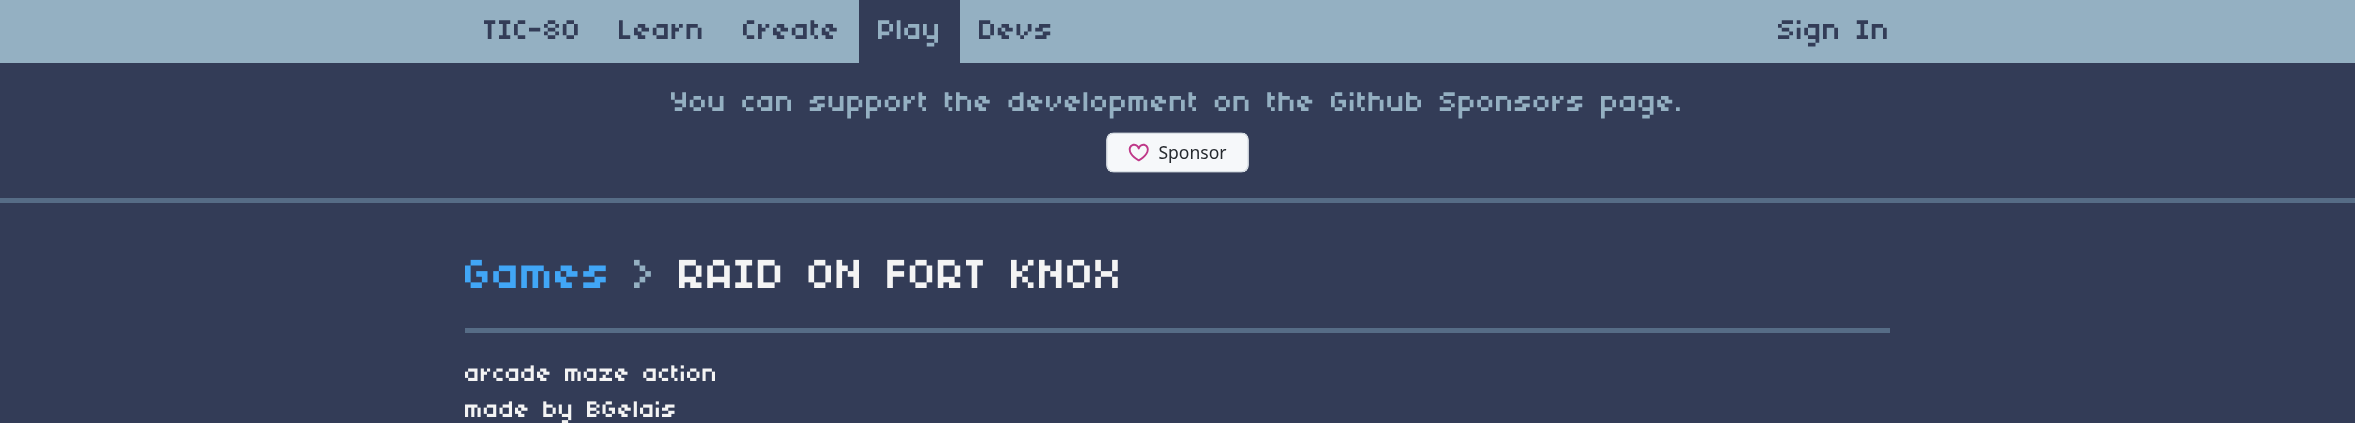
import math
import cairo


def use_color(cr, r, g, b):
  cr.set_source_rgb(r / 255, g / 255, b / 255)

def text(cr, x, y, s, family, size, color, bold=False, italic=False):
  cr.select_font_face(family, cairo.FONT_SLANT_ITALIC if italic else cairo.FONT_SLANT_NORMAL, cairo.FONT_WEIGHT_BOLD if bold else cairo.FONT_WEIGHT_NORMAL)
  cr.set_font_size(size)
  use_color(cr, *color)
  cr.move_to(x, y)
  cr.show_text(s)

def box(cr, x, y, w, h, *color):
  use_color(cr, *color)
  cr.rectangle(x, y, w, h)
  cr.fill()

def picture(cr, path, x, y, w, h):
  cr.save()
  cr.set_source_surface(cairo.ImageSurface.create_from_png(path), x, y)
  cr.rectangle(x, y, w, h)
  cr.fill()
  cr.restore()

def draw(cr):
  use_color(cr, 51, 60, 87)
  cr.paint()
  box(cr, 0, 0, 2355, 63, 148, 176, 194)
  box(cr, 859, 0, 101, 63, 51, 60, 87)
  picture(cr, "img_01.png", 1106, 132, 143, 41)
  box(cr, 0, 198, 2355, 5, 86, 108, 134)
  box(cr, 465, 328, 1425, 5, 86, 108, 134)
  text(cr, 484, 39, "TIC-80", "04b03", 30, (51, 60, 87))
  text(cr, 619, 39, "Learn", "04b03", 30, (51, 60, 87))
  text(cr, 743, 39, "Create", "04b03", 30, (51, 60, 87))
  text(cr, 878, 39, "Play", "04b03", 30, (148, 176, 194))
  text(cr, 979, 39, "Devs", "04b03", 30, (51, 60, 87))
  text(cr, 1778, 39, "Sign In", "04b03", 30, (51, 60, 87))
  text(cr, 671, 111, "You can support the development on the Github Sponsors page.", "04b03", 30, (148, 176, 194))
  text(cr, 465, 288, "Games", "04b03", 45, (65, 166, 246))
  text(cr, 634, 288, ">", "04b03", 45, (148, 176, 194))
  text(cr, 679, 288, "RAID ON FORT KNOX", "04b03", 45, (244, 244, 244))
  text(cr, 465, 381, "arcade maze action", "04b03", 25, (244, 244, 244))
  text(cr, 465, 417, "made by BGelais", "04b03", 25, (244, 244, 244))


surface = cairo.ImageSurface(cairo.FORMAT_RGB24, 2355, 423)
cr = cairo.Context(surface)
options = cairo.FontOptions()
options.set_hint_metrics(cairo.HINT_METRICS_OFF)
options.set_hint_style(cairo.HINT_STYLE_NONE)
cr.set_font_options(options)
cr.set_miter_limit(4)
draw(cr)
surface.write_to_png("out.png")
